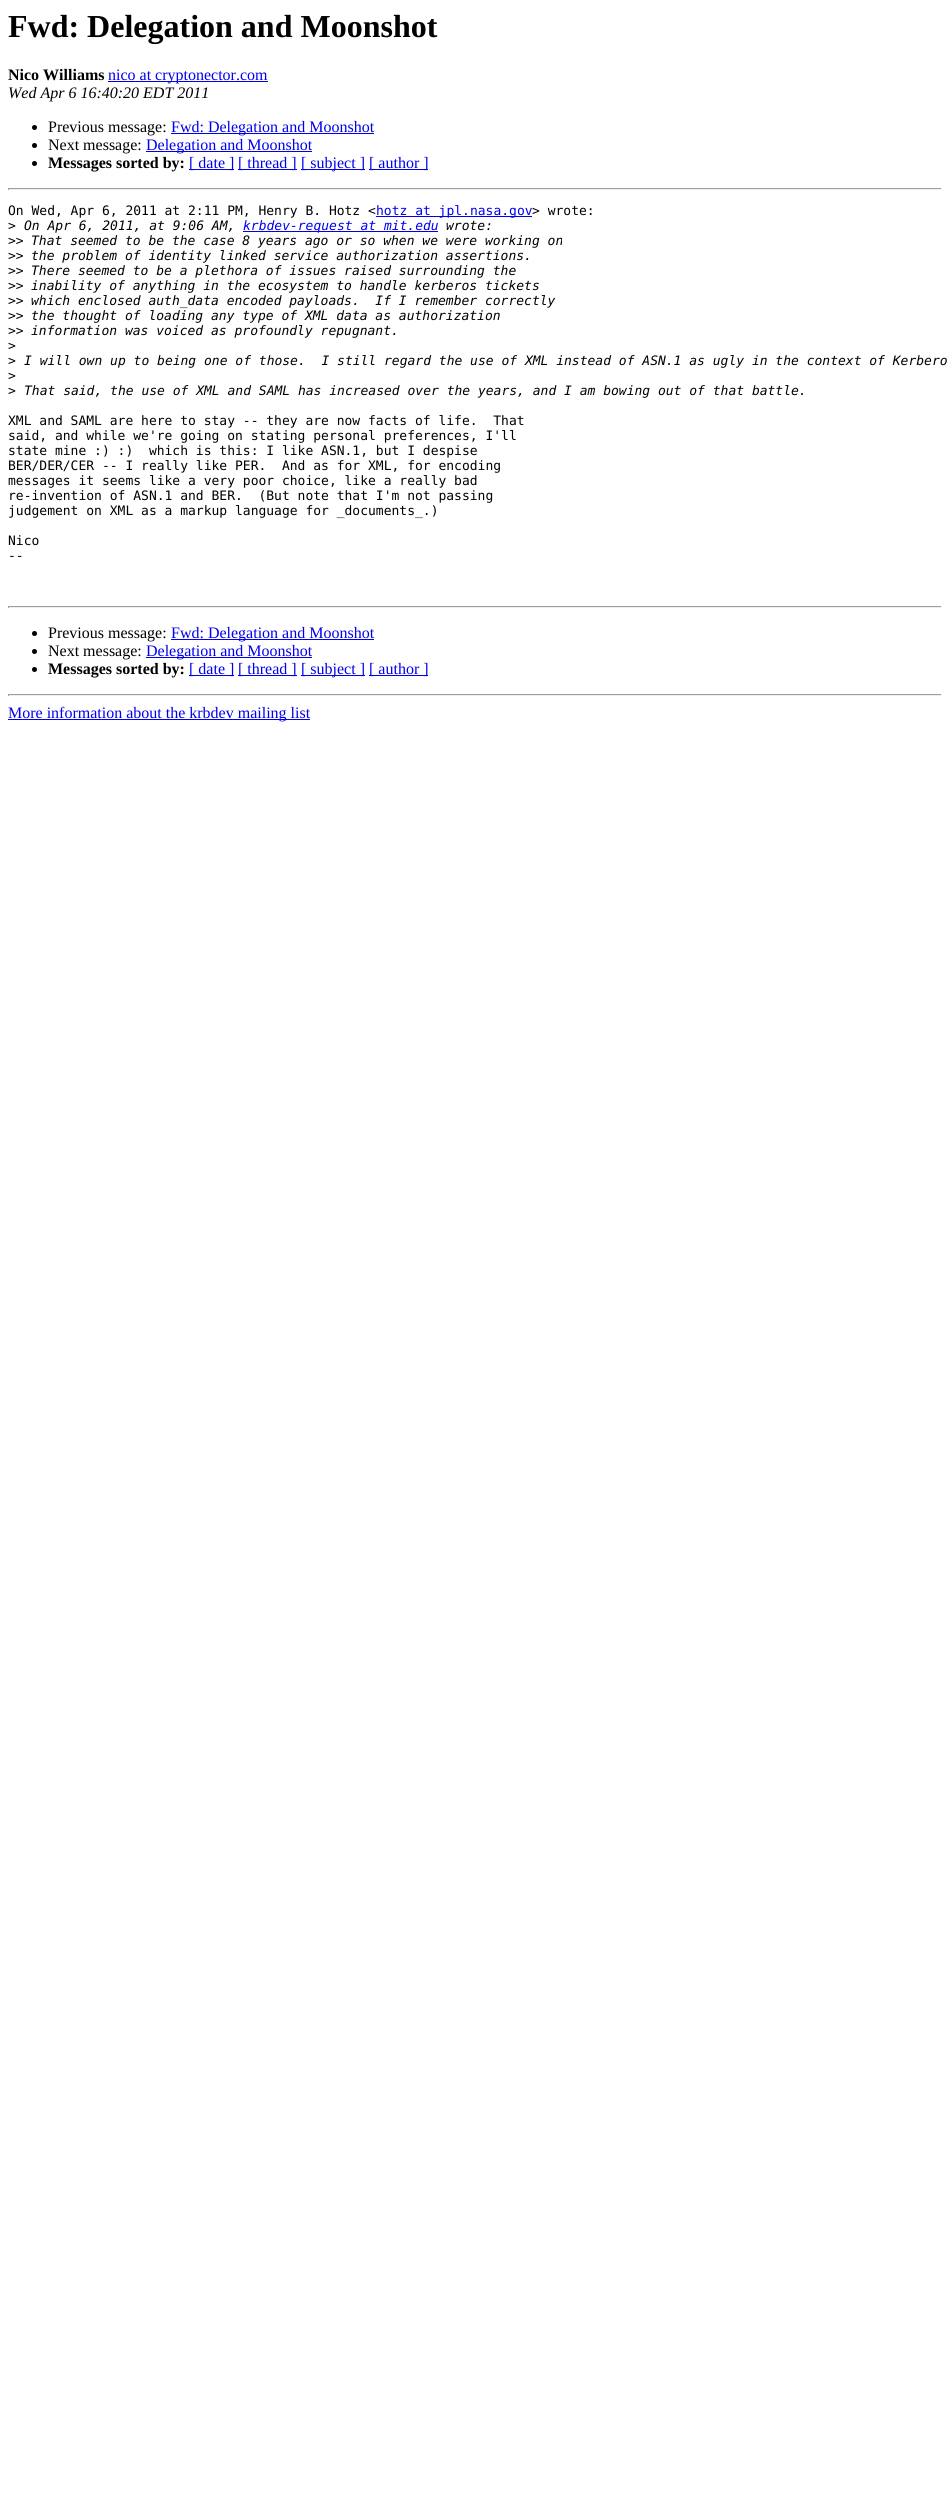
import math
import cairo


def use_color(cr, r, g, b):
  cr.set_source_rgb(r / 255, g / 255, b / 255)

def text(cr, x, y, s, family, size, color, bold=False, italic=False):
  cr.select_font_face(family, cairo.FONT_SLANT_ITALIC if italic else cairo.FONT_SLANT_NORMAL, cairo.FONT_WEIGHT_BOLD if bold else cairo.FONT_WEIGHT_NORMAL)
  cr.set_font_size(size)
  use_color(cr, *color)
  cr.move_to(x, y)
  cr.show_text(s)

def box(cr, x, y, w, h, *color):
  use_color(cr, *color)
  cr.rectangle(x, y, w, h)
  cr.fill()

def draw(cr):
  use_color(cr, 255, 255, 255)
  cr.paint()
  box(cr, 108, 81, 160, 1, 0, 0, 238)
  use_color(cr, 0, 0, 0)
  cr.arc(34.5, 127.5, 2.5, 0, 2 * math.pi)
  cr.fill()
  box(cr, 171, 133, 203, 1, 0, 0, 238)
  use_color(cr, 0, 0, 0)
  cr.arc(34.5, 145.5, 2.5, 0, 2 * math.pi)
  cr.fill()
  box(cr, 146, 151, 166, 1, 0, 0, 238)
  use_color(cr, 0, 0, 0)
  cr.arc(34.5, 163.5, 2.5, 0, 2 * math.pi)
  cr.fill()
  box(cr, 189, 169, 45, 1, 0, 0, 238)
  box(cr, 238, 169, 59, 1, 0, 0, 238)
  box(cr, 301, 169, 64, 1, 0, 0, 238)
  box(cr, 369, 169, 59, 1, 0, 0, 238)
  box(cr, 8, 188, 934, 1, 159, 159, 159)
  box(cr, 941, 188, 1, 2, 238, 238, 238)
  box(cr, 8, 189, 934, 1, 238, 238, 238)
  box(cr, 8, 188, 1, 2, 159, 159, 159)
  box(cr, 376, 216, 156, 1, 0, 0, 238)
  box(cr, 243, 231, 195, 1, 0, 0, 238)
  box(cr, 8, 606, 934, 1, 159, 159, 159)
  box(cr, 941, 606, 1, 2, 238, 238, 238)
  box(cr, 8, 607, 934, 1, 238, 238, 238)
  box(cr, 8, 606, 1, 2, 159, 159, 159)
  use_color(cr, 0, 0, 0)
  cr.arc(34.5, 633.5, 2.5, 0, 2 * math.pi)
  cr.fill()
  box(cr, 171, 639, 203, 1, 0, 0, 238)
  use_color(cr, 0, 0, 0)
  cr.arc(34.5, 651.5, 2.5, 0, 2 * math.pi)
  cr.fill()
  box(cr, 146, 657, 166, 1, 0, 0, 238)
  use_color(cr, 0, 0, 0)
  cr.arc(34.5, 669.5, 2.5, 0, 2 * math.pi)
  cr.fill()
  box(cr, 189, 675, 45, 1, 0, 0, 238)
  box(cr, 238, 675, 59, 1, 0, 0, 238)
  box(cr, 301, 675, 64, 1, 0, 0, 238)
  box(cr, 369, 675, 59, 1, 0, 0, 238)
  box(cr, 8, 694, 934, 1, 159, 159, 159)
  box(cr, 941, 694, 1, 2, 238, 238, 238)
  box(cr, 8, 695, 934, 1, 238, 238, 238)
  box(cr, 8, 694, 1, 2, 159, 159, 159)
  box(cr, 8, 719, 302, 1, 0, 0, 238)
  text(cr, 8, 37, "Fwd: Delegation and Moonshot", "Liberation Serif", 32, (0, 0, 0), bold=True)
  text(cr, 8, 80, "Nico Williams", "Liberation Serif", 16, (0, 0, 0), bold=True)
  text(cr, 108, 80, "nico at cryptonector.com", "Liberation Serif", 16, (0, 0, 238))
  text(cr, 8, 98, "Wed Apr 6 16:40:20 EDT 2011", "Liberation Serif", 16, (0, 0, 0), italic=True)
  text(cr, 48, 132, "Previous message:", "Liberation Serif", 16, (0, 0, 0))
  text(cr, 171, 132, "Fwd: Delegation and Moonshot", "Liberation Serif", 16, (0, 0, 238))
  text(cr, 48, 150, "Next message:", "Liberation Serif", 16, (0, 0, 0))
  text(cr, 146, 150, "Delegation and Moonshot", "Liberation Serif", 16, (0, 0, 238))
  text(cr, 48, 168, "Messages sorted by:", "Liberation Serif", 16, (0, 0, 0), bold=True)
  text(cr, 189, 168, "[ date ]", "Liberation Serif", 16, (0, 0, 238))
  text(cr, 238, 168, "[ thread ]", "Liberation Serif", 16, (0, 0, 238))
  text(cr, 301, 168, "[ subject ]", "Liberation Serif", 16, (0, 0, 238))
  text(cr, 369, 168, "[ author ]", "Liberation Serif", 16, (0, 0, 238))
  text(cr, 8, 215, "On Wed, Apr 6, 2011 at 2:11 PM, Henry B. Hotz <", "DejaVu Sans Mono", 13, (0, 0, 0))
  text(cr, 376, 215, "hotz at jpl.nasa.gov", "DejaVu Sans Mono", 13, (0, 0, 238))
  text(cr, 532, 215, "> wrote:", "DejaVu Sans Mono", 13, (0, 0, 0))
  text(cr, 8, 230, ">", "DejaVu Sans Mono", 13, (0, 0, 0))
  text(cr, 24, 230, "On Apr 6, 2011, at 9:06 AM,", "DejaVu Sans Mono", 13, (0, 0, 0), italic=True)
  text(cr, 243, 230, "krbdev-request at mit.edu", "DejaVu Sans Mono", 13, (0, 0, 238), italic=True)
  text(cr, 446, 230, "wrote:", "DejaVu Sans Mono", 13, (0, 0, 0), italic=True)
  text(cr, 8, 245, ">>", "DejaVu Sans Mono", 13, (0, 0, 0))
  text(cr, 31, 245, "That seemed to be the case 8 years ago or so when we were working on", "DejaVu Sans Mono", 13, (0, 0, 0), italic=True)
  text(cr, 8, 260, ">>", "DejaVu Sans Mono", 13, (0, 0, 0))
  text(cr, 31, 260, "the problem of identity linked service authorization assertions.", "DejaVu Sans Mono", 13, (0, 0, 0), italic=True)
  text(cr, 8, 275, ">>", "DejaVu Sans Mono", 13, (0, 0, 0))
  text(cr, 31, 275, "There seemed to be a plethora of issues raised surrounding the", "DejaVu Sans Mono", 13, (0, 0, 0), italic=True)
  text(cr, 8, 290, ">>", "DejaVu Sans Mono", 13, (0, 0, 0))
  text(cr, 31, 290, "inability of anything in the ecosystem to handle kerberos tickets", "DejaVu Sans Mono", 13, (0, 0, 0), italic=True)
  text(cr, 8, 305, ">>", "DejaVu Sans Mono", 13, (0, 0, 0))
  text(cr, 31, 305, "which enclosed auth_data encoded payloads.  If I remember correctly", "DejaVu Sans Mono", 13, (0, 0, 0), italic=True)
  text(cr, 8, 320, ">>", "DejaVu Sans Mono", 13, (0, 0, 0))
  text(cr, 31, 320, "the thought of loading any type of XML data as authorization", "DejaVu Sans Mono", 13, (0, 0, 0), italic=True)
  text(cr, 8, 335, ">>", "DejaVu Sans Mono", 13, (0, 0, 0))
  text(cr, 31, 335, "information was voiced as profoundly repugnant.", "DejaVu Sans Mono", 13, (0, 0, 0), italic=True)
  text(cr, 8, 350, ">", "DejaVu Sans Mono", 13, (0, 0, 0))
  text(cr, 8, 365, ">", "DejaVu Sans Mono", 13, (0, 0, 0))
  text(cr, 24, 365, "I will own up to being one of those.  I still regard the use of XML instead of ASN.1 as ugly in the context of Kerbero", "DejaVu Sans Mono", 13, (0, 0, 0), italic=True)
  text(cr, 8, 380, ">", "DejaVu Sans Mono", 13, (0, 0, 0))
  text(cr, 8, 395, ">", "DejaVu Sans Mono", 13, (0, 0, 0))
  text(cr, 24, 395, "That said, the use of XML and SAML has increased over the years, and I am bowing out of that battle.", "DejaVu Sans Mono", 13, (0, 0, 0), italic=True)
  text(cr, 8, 425, "XML and SAML are here to stay -- they are now facts of life.  That", "DejaVu Sans Mono", 13, (0, 0, 0))
  text(cr, 8, 440, "said, and while we're going on stating personal preferences, I'll", "DejaVu Sans Mono", 13, (0, 0, 0))
  text(cr, 8, 455, "state mine :) :)  which is this: I like ASN.1, but I despise", "DejaVu Sans Mono", 13, (0, 0, 0))
  text(cr, 8, 470, "BER/DER/CER -- I really like PER.  And as for XML, for encoding", "DejaVu Sans Mono", 13, (0, 0, 0))
  text(cr, 8, 485, "messages it seems like a very poor choice, like a really bad", "DejaVu Sans Mono", 13, (0, 0, 0))
  text(cr, 8, 500, "re-invention of ASN.1 and BER.  (But note that I'm not passing", "DejaVu Sans Mono", 13, (0, 0, 0))
  text(cr, 8, 515, "judgement on XML as a markup language for _documents_.)", "DejaVu Sans Mono", 13, (0, 0, 0))
  text(cr, 8, 545, "Nico", "DejaVu Sans Mono", 13, (0, 0, 0))
  text(cr, 8, 560, "--", "DejaVu Sans Mono", 13, (0, 0, 0))
  text(cr, 48, 638, "Previous message:", "Liberation Serif", 16, (0, 0, 0))
  text(cr, 171, 638, "Fwd: Delegation and Moonshot", "Liberation Serif", 16, (0, 0, 238))
  text(cr, 48, 656, "Next message:", "Liberation Serif", 16, (0, 0, 0))
  text(cr, 146, 656, "Delegation and Moonshot", "Liberation Serif", 16, (0, 0, 238))
  text(cr, 48, 674, "Messages sorted by:", "Liberation Serif", 16, (0, 0, 0), bold=True)
  text(cr, 189, 674, "[ date ]", "Liberation Serif", 16, (0, 0, 238))
  text(cr, 238, 674, "[ thread ]", "Liberation Serif", 16, (0, 0, 238))
  text(cr, 301, 674, "[ subject ]", "Liberation Serif", 16, (0, 0, 238))
  text(cr, 369, 674, "[ author ]", "Liberation Serif", 16, (0, 0, 238))
  text(cr, 8, 718, "More information about the krbdev mailing list", "Liberation Serif", 16, (0, 0, 238))


surface = cairo.ImageSurface(cairo.FORMAT_RGB24, 950, 2501)
cr = cairo.Context(surface)
options = cairo.FontOptions()
options.set_hint_metrics(cairo.HINT_METRICS_OFF)
options.set_hint_style(cairo.HINT_STYLE_NONE)
cr.set_font_options(options)
cr.set_miter_limit(4)
draw(cr)
surface.write_to_png("out.png")
